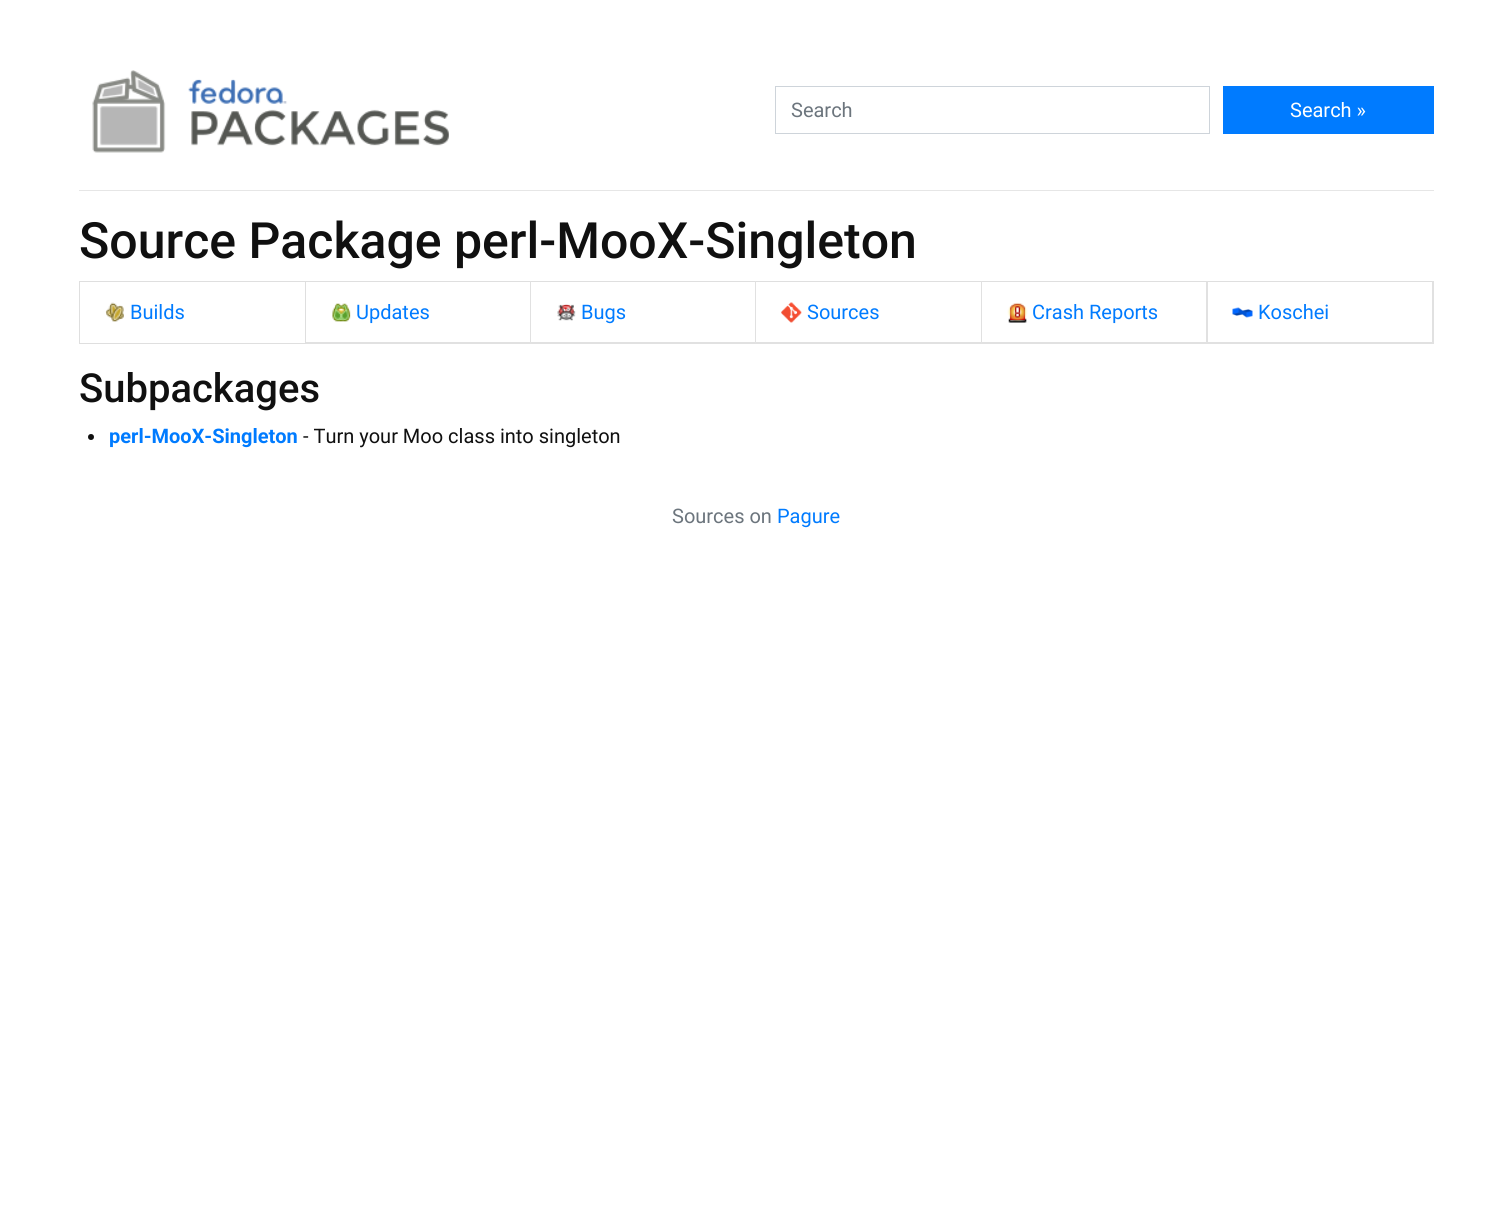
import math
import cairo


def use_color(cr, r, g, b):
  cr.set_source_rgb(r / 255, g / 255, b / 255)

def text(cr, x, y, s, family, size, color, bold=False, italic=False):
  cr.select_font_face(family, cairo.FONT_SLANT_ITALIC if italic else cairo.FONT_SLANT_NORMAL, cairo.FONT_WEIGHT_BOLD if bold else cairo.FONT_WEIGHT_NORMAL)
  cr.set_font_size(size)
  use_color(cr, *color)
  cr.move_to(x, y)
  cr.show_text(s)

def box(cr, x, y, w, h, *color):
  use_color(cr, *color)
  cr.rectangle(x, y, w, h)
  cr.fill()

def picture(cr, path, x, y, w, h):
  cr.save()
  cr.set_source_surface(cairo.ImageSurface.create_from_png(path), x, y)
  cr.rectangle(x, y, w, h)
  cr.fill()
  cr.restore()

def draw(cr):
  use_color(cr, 255, 255, 255)
  cr.paint()
  picture(cr, "img_01.png", 92, 70, 357, 83)
  cr.rectangle(775.5, 86.5, 434, 47)
  use_color(cr, 206, 212, 218)
  cr.set_line_width(1)
  cr.stroke()
  box(cr, 1223, 86, 211, 48, 0, 123, 255)
  box(cr, 79, 190, 1355, 1, 230, 230, 230)
  cr.rectangle(79.5, 281.5, 226, 62)
  use_color(cr, 223, 223, 223)
  cr.stroke()
  picture(cr, "img_02.png", 105, 302, 19, 20)
  cr.new_path()
  cr.move_to(306, 281)
  cr.line_to(531, 281)
  cr.line_to(530, 282)
  cr.line_to(306, 282)
  cr.close_path()
  cr.fill()
  cr.set_source_rgba(0, 0, 0, 0.12)
  cr.new_path()
  cr.move_to(531, 281)
  cr.line_to(531, 344)
  cr.line_to(530, 342)
  cr.line_to(530, 282)
  cr.close_path()
  cr.fill()
  cr.new_path()
  cr.move_to(531, 344)
  cr.line_to(306, 344)
  cr.line_to(306, 342)
  cr.line_to(530, 342)
  cr.close_path()
  cr.fill()
  picture(cr, "img_03.png", 332, 303, 19, 19)
  use_color(cr, 223, 223, 223)
  cr.new_path()
  cr.move_to(531, 281)
  cr.line_to(756, 281)
  cr.line_to(755, 282)
  cr.line_to(531, 282)
  cr.close_path()
  cr.fill()
  cr.set_source_rgba(0, 0, 0, 0.12)
  cr.new_path()
  cr.move_to(756, 281)
  cr.line_to(756, 344)
  cr.line_to(755, 342)
  cr.line_to(755, 282)
  cr.close_path()
  cr.fill()
  cr.new_path()
  cr.move_to(756, 344)
  cr.line_to(531, 344)
  cr.line_to(531, 342)
  cr.line_to(755, 342)
  cr.close_path()
  cr.fill()
  picture(cr, "img_04.png", 557, 304, 19, 17)
  use_color(cr, 223, 223, 223)
  cr.new_path()
  cr.move_to(756, 281)
  cr.line_to(982, 281)
  cr.line_to(981, 282)
  cr.line_to(756, 282)
  cr.close_path()
  cr.fill()
  cr.set_source_rgba(0, 0, 0, 0.12)
  cr.new_path()
  cr.move_to(982, 281)
  cr.line_to(982, 344)
  cr.line_to(981, 342)
  cr.line_to(981, 282)
  cr.close_path()
  cr.fill()
  cr.new_path()
  cr.move_to(982, 344)
  cr.line_to(756, 344)
  cr.line_to(756, 342)
  cr.line_to(981, 342)
  cr.close_path()
  cr.fill()
  picture(cr, "img_05.png", 781, 302, 21, 21)
  use_color(cr, 223, 223, 223)
  cr.new_path()
  cr.move_to(982, 281)
  cr.line_to(1208, 281)
  cr.line_to(1206, 282)
  cr.line_to(982, 282)
  cr.close_path()
  cr.fill()
  cr.set_source_rgba(0, 0, 0, 0.12)
  cr.new_path()
  cr.move_to(1208, 281)
  cr.line_to(1208, 344)
  cr.line_to(1206, 342)
  cr.line_to(1206, 282)
  cr.close_path()
  cr.fill()
  cr.new_path()
  cr.move_to(1208, 344)
  cr.line_to(982, 344)
  cr.line_to(982, 342)
  cr.line_to(1206, 342)
  cr.close_path()
  cr.fill()
  picture(cr, "img_06.png", 1007, 302, 21, 21)
  use_color(cr, 223, 223, 223)
  cr.new_path()
  cr.move_to(1208, 281)
  cr.line_to(1434, 281)
  cr.line_to(1432, 282)
  cr.line_to(1208, 282)
  cr.close_path()
  cr.fill()
  cr.set_source_rgba(0, 0, 0, 0.12)
  cr.new_path()
  cr.move_to(1434, 281)
  cr.line_to(1434, 344)
  cr.line_to(1432, 342)
  cr.line_to(1432, 282)
  cr.close_path()
  cr.fill()
  cr.new_path()
  cr.move_to(1434, 344)
  cr.line_to(1208, 344)
  cr.line_to(1208, 342)
  cr.line_to(1432, 342)
  cr.close_path()
  cr.fill()
  picture(cr, "img_07.png", 1232, 307, 21, 11)
  use_color(cr, 16, 16, 16)
  cr.arc(91, 437, 3, 0, 2 * math.pi)
  cr.fill()
  text(cr, 791, 117, "Search", "Roboto", 20, (108, 117, 125))
  text(cr, 1290, 117, "Search »", "Roboto", 20, (255, 255, 255))
  text(cr, 79, 258, "Source Package perl-MooX-Singleton", "Roboto Medium", 50, (16, 16, 16))
  text(cr, 130, 319, "Builds", "Roboto", 20, (0, 123, 255))
  text(cr, 356, 319, "Updates", "Roboto", 20, (0, 123, 255))
  text(cr, 581, 319, "Bugs", "Roboto", 20, (0, 123, 255))
  text(cr, 807, 319, "Sources", "Roboto", 20, (0, 123, 255))
  text(cr, 1032, 319, "Crash Reports", "Roboto", 20, (0, 123, 255))
  text(cr, 1258, 319, "Koschei", "Roboto", 20, (0, 123, 255))
  text(cr, 79, 402, "Subpackages", "Roboto Medium", 40, (16, 16, 16))
  text(cr, 109, 443, "perl-MooX-Singleton", "Roboto", 20, (0, 123, 255), bold=True)
  text(cr, 303, 443, "- Turn your Moo class into singleton", "Roboto", 20, (16, 16, 16))
  text(cr, 672, 523, "Sources on", "Roboto", 20, (108, 117, 125))
  text(cr, 777, 523, "Pagure", "Roboto", 20, (0, 123, 255))


surface = cairo.ImageSurface(cairo.FORMAT_RGB24, 1512, 1220)
cr = cairo.Context(surface)
options = cairo.FontOptions()
options.set_hint_metrics(cairo.HINT_METRICS_OFF)
options.set_hint_style(cairo.HINT_STYLE_NONE)
cr.set_font_options(options)
cr.set_miter_limit(4)
draw(cr)
surface.write_to_png("out.png")
